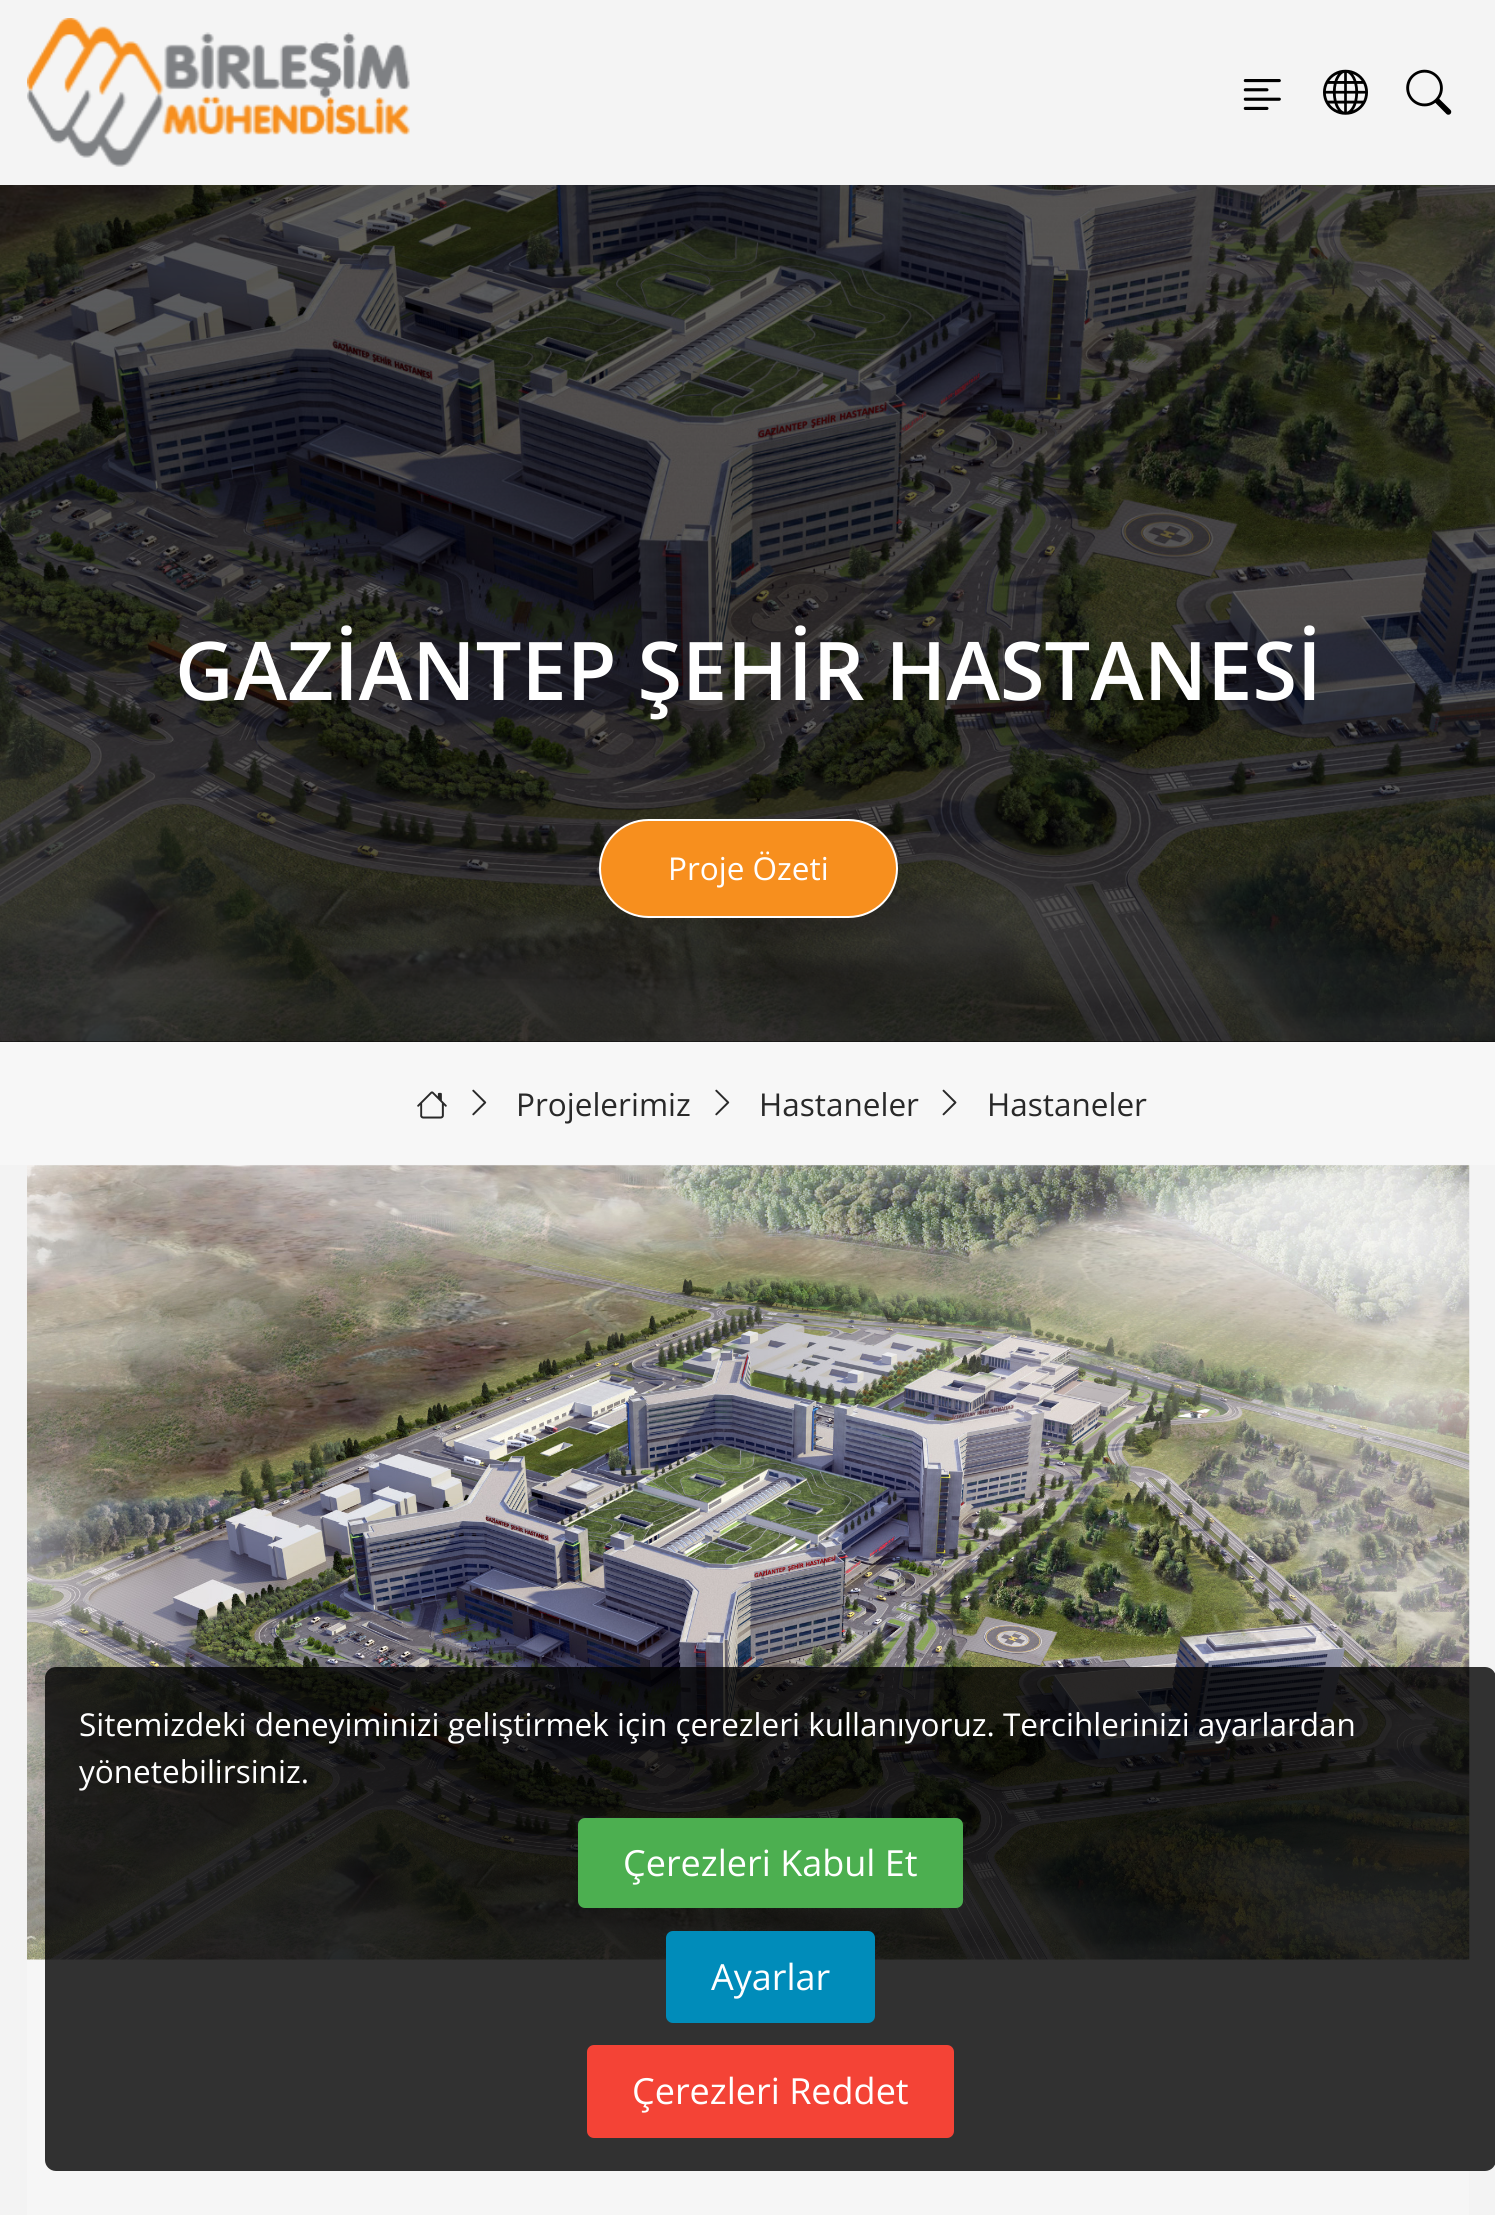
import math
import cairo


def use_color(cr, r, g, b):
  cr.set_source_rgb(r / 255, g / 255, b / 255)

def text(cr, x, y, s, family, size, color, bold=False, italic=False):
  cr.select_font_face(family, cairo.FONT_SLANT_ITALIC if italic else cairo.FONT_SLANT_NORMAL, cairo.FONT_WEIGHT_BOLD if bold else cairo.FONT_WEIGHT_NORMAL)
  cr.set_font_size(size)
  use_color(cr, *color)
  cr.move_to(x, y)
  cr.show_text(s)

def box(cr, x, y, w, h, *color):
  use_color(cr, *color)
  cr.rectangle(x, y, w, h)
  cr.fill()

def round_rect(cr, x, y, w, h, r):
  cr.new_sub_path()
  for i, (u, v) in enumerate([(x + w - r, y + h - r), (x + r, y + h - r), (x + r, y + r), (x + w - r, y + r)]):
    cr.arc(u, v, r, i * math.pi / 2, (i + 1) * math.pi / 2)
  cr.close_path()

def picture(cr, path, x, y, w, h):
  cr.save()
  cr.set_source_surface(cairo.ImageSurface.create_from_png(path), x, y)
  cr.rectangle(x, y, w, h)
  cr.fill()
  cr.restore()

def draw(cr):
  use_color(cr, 29, 29, 29)
  cr.paint()
  box(cr, 0, 0, 1495, 185, 244, 244, 244)
  picture(cr, "img_01.png", 27, 18, 383, 149)
  picture(cr, "img_02.png", 1243, 79, 38, 31)
  picture(cr, "img_03.png", 1323, 69, 45, 46)
  picture(cr, "img_04.png", 1406, 69, 46, 46)
  picture(cr, "img_05.png", 0, 185, 1495, 857)
  gradient = cairo.LinearGradient(748, -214, 748, 1042)
  gradient.add_color_stop_rgba(0, 0, 0, 0, 0)
  gradient.add_color_stop_rgba(1, 0, 0, 0, 0.74)
  cr.set_source(gradient)
  cr.rectangle(0, 185, 1495, 857)
  cr.fill()
  gradient = cairo.LinearGradient(748, 1042, 748, -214)
  gradient.add_color_stop_rgba(0, 0, 0, 0, 0)
  gradient.add_color_stop_rgba(1, 0, 0, 0, 0.74)
  cr.set_source(gradient)
  cr.rectangle(0, 185, 1495, 794)
  cr.fill()
  use_color(cr, 247, 143, 30)
  round_rect(cr, 600, 820, 297, 97, 48.5)
  cr.fill_preserve()
  use_color(cr, 255, 255, 255)
  cr.stroke()
  box(cr, 0, 1042, 1495, 123, 247, 247, 247)
  picture(cr, "img_06.png", 417, 1091, 30, 28)
  picture(cr, "img_07.png", 472, 1089, 15, 27)
  picture(cr, "img_07.png", 715, 1089, 15, 27)
  picture(cr, "img_08.png", 942, 1089, 15, 27)
  box(cr, 0, 1165, 1495, 1050, 243, 243, 243)
  picture(cr, "img_09.png", 27, 1165, 1443, 795)
  box(cr, 27, 1960, 1442, 255, 246, 246, 246)
  cr.set_source_rgba(0, 0, 0, 0.8)
  round_rect(cr, 45, 1667, 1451, 504, 11)
  cr.fill()
  use_color(cr, 76, 175, 80)
  round_rect(cr, 578, 1818, 385, 90, 7)
  cr.fill()
  use_color(cr, 0, 140, 186)
  round_rect(cr, 666, 1931, 209, 92, 7)
  cr.fill()
  use_color(cr, 244, 67, 54)
  round_rect(cr, 587, 2045, 367, 93, 7)
  cr.fill()
  text(cr, 175, 700, "GAZİANTEP ŞEHİR HASTANESİ", "Open Sans SemiBold", 81, (255, 255, 255))
  text(cr, 668, 880, "Proje Özeti", "Open Sans", 31.5, (255, 255, 255))
  text(cr, 516, 1116, "Projelerimiz", "Open Sans", 31.5, (41, 41, 41))
  text(cr, 759, 1116, "Hastaneler", "Open Sans", 31.5, (41, 41, 41))
  text(cr, 987, 1116, "Hastaneler", "Open Sans", 31.5, (41, 41, 41))
  text(cr, 79, 1736, "Sitemizdeki deneyiminizi geliştirmek için çerezleri kullanıyoruz. Tercihlerinizi ayarlardan", "Open Sans", 31.5, (255, 255, 255))
  text(cr, 79, 1783, "yönetebilirsiniz.", "Open Sans", 31.5, (255, 255, 255))
  text(cr, 623, 1876, "Çerezleri Kabul Et", "Open Sans", 36, (255, 255, 255))
  text(cr, 711, 1990, "Ayarlar", "Open Sans", 36, (255, 255, 255))
  text(cr, 632, 2104, "Çerezleri Reddet", "Open Sans", 36, (255, 255, 255))


surface = cairo.ImageSurface(cairo.FORMAT_RGB24, 1495, 2215)
cr = cairo.Context(surface)
options = cairo.FontOptions()
options.set_hint_metrics(cairo.HINT_METRICS_OFF)
options.set_hint_style(cairo.HINT_STYLE_NONE)
cr.set_font_options(options)
cr.set_miter_limit(4)
draw(cr)
surface.write_to_png("out.png")
